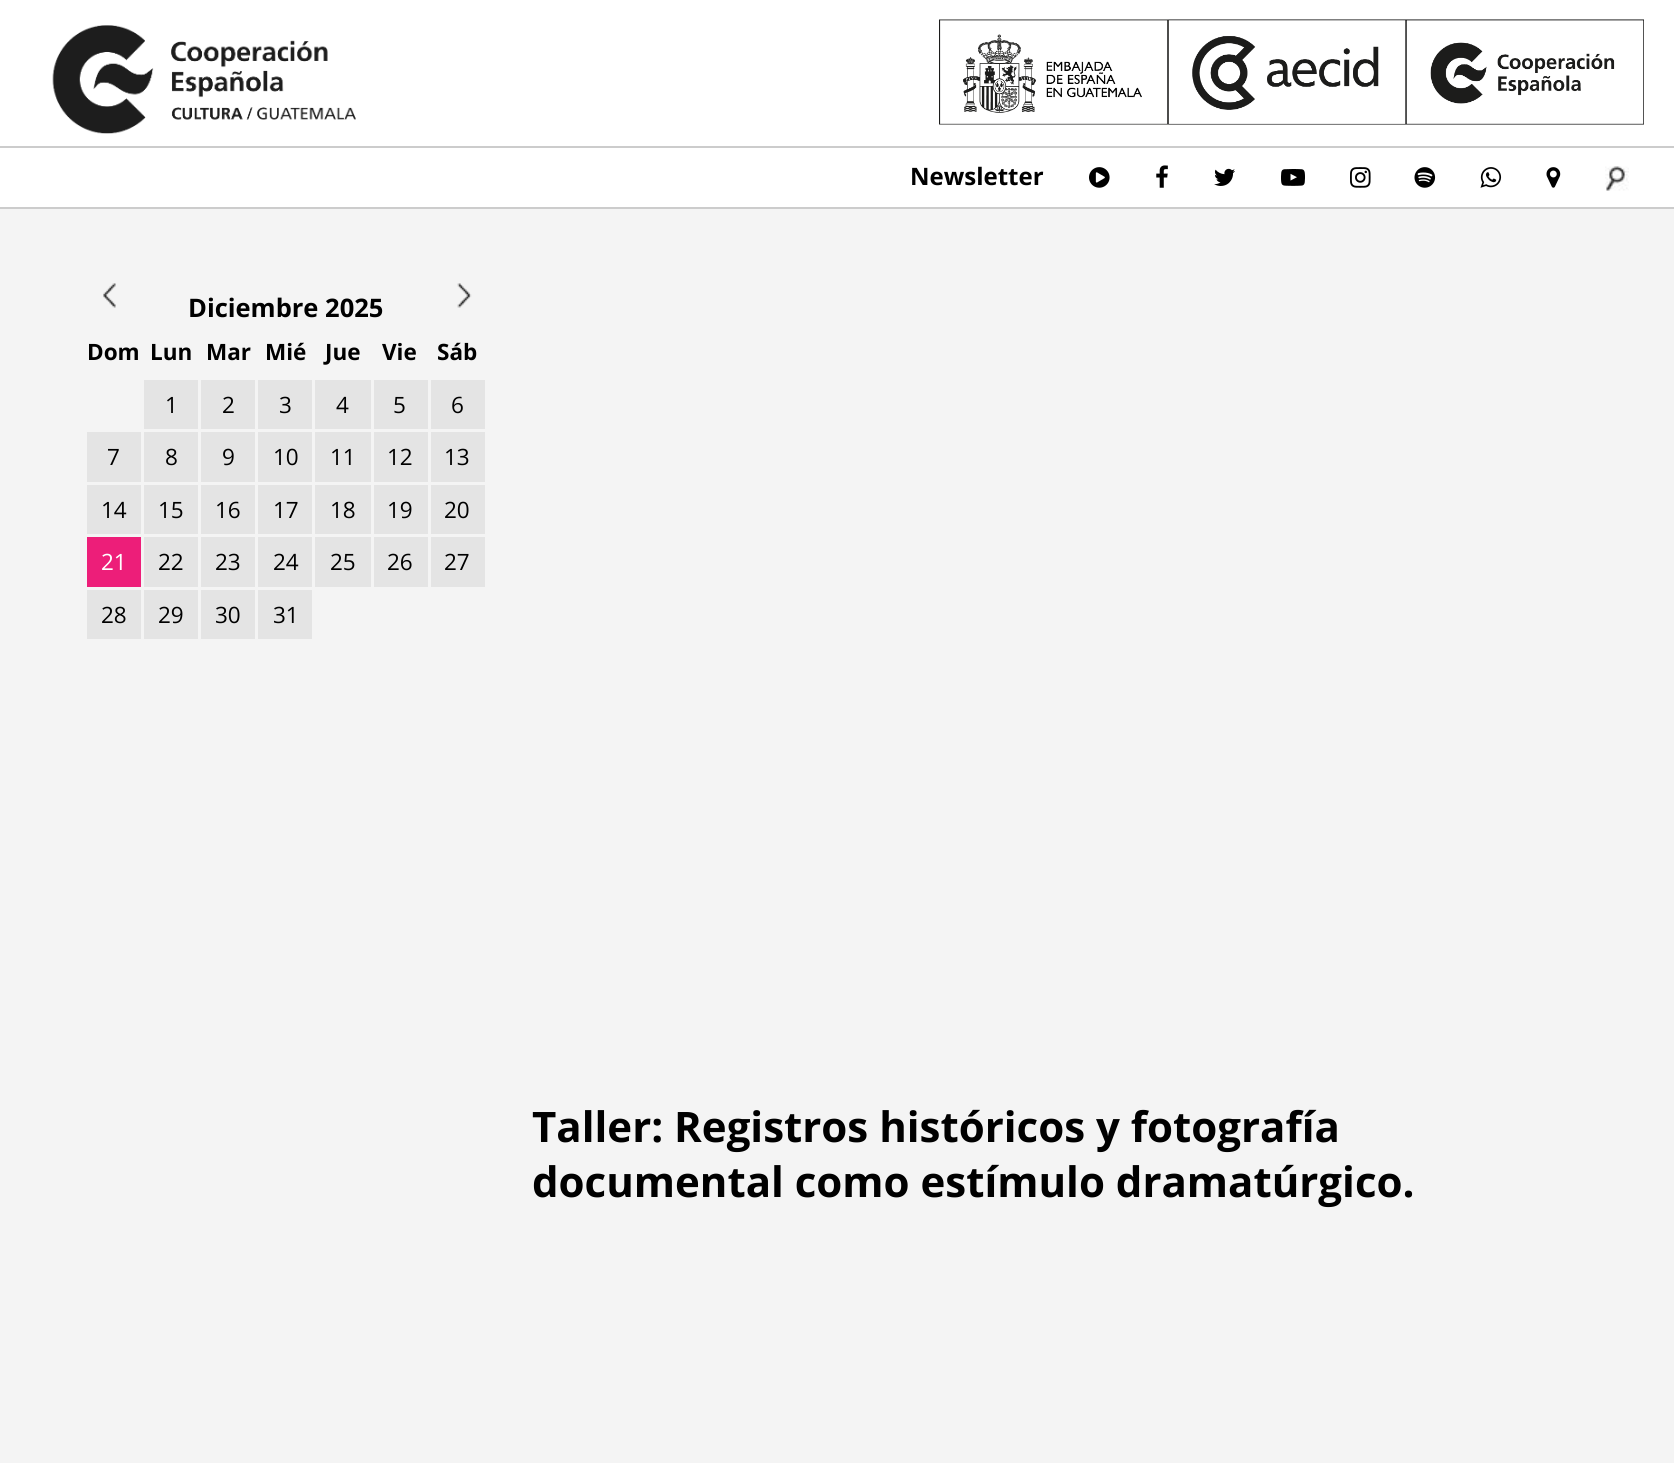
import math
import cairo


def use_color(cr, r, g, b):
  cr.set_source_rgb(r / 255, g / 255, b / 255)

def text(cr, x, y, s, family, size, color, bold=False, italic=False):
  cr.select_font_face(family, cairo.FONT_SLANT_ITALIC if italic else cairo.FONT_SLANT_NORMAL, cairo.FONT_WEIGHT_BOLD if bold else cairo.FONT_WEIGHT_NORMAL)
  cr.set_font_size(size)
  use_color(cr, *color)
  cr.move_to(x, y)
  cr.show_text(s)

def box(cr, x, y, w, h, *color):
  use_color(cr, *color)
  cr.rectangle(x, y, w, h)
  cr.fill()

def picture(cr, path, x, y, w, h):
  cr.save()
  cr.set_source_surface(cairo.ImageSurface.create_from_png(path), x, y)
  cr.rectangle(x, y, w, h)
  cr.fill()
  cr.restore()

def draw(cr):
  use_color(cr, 255, 255, 255)
  cr.paint()
  picture(cr, "img_01.png", 52, 25, 304, 109)
  picture(cr, "img_02.png", 939, 19, 705, 106)
  box(cr, 0, 146, 1674, 2, 204, 204, 204)
  box(cr, 0, 207, 1674, 2, 204, 204, 204)
  picture(cr, "img_03.png", 1089, 167, 21, 21)
  picture(cr, "img_04.png", 1156, 165, 12, 23)
  picture(cr, "img_05.png", 1214, 168, 21, 18)
  picture(cr, "img_06.png", 1281, 169, 24, 17)
  picture(cr, "img_07.png", 1350, 167, 21, 21)
  picture(cr, "img_08.png", 1414, 167, 22, 21)
  picture(cr, "img_09.png", 1480, 167, 22, 21)
  picture(cr, "img_10.png", 1546, 167, 15, 21)
  picture(cr, "img_11.png", 1605, 166, 24, 25)
  box(cr, 0, 209, 1674, 1254, 244, 244, 244)
  picture(cr, "img_12.png", 103, 283, 13, 25)
  picture(cr, "img_13.png", 457, 283, 15, 25)
  box(cr, 144, 380, 54, 49, 228, 228, 228)
  box(cr, 201, 380, 54, 49, 228, 228, 228)
  box(cr, 258, 380, 54, 49, 228, 228, 228)
  box(cr, 315, 380, 56, 49, 228, 228, 228)
  box(cr, 374, 380, 54, 49, 228, 228, 228)
  box(cr, 431, 380, 54, 49, 228, 228, 228)
  box(cr, 87, 432, 54, 50, 228, 228, 228)
  box(cr, 144, 432, 54, 50, 228, 228, 228)
  box(cr, 201, 432, 54, 50, 228, 228, 228)
  box(cr, 258, 432, 54, 50, 228, 228, 228)
  box(cr, 315, 432, 56, 50, 228, 228, 228)
  box(cr, 374, 432, 54, 50, 228, 228, 228)
  box(cr, 431, 432, 54, 50, 228, 228, 228)
  box(cr, 87, 485, 54, 49, 228, 228, 228)
  box(cr, 144, 485, 54, 49, 228, 228, 228)
  box(cr, 201, 485, 54, 49, 228, 228, 228)
  box(cr, 258, 485, 54, 49, 228, 228, 228)
  box(cr, 315, 485, 56, 49, 228, 228, 228)
  box(cr, 374, 485, 54, 49, 228, 228, 228)
  box(cr, 431, 485, 54, 49, 228, 228, 228)
  box(cr, 87, 537, 54, 50, 237, 30, 121)
  box(cr, 144, 537, 54, 50, 228, 228, 228)
  box(cr, 201, 537, 54, 50, 228, 228, 228)
  box(cr, 258, 537, 54, 50, 228, 228, 228)
  box(cr, 315, 537, 56, 50, 228, 228, 228)
  box(cr, 374, 537, 54, 50, 228, 228, 228)
  box(cr, 431, 537, 54, 50, 228, 228, 228)
  box(cr, 87, 590, 54, 49, 228, 228, 228)
  box(cr, 144, 590, 54, 49, 228, 228, 228)
  box(cr, 201, 590, 54, 49, 228, 228, 228)
  box(cr, 258, 590, 54, 49, 228, 228, 228)
  text(cr, 910, 185, "Newsletter", "Open Sans", 24, (0, 0, 0), bold=True)
  text(cr, 188, 317, "Diciembre 2025", "Open Sans", 25.5, (0, 0, 0), bold=True)
  text(cr, 87, 360, "Dom", "Open Sans", 22.5, (0, 0, 0), bold=True)
  text(cr, 150, 360, "Lun", "Open Sans", 22.5, (0, 0, 0), bold=True)
  text(cr, 206, 360, "Mar", "Open Sans", 22.5, (0, 0, 0), bold=True)
  text(cr, 265, 360, "Mié", "Open Sans", 22.5, (0, 0, 0), bold=True)
  text(cr, 325, 360, "Jue", "Open Sans", 22.5, (0, 0, 0), bold=True)
  text(cr, 382, 360, "Vie", "Open Sans", 22.5, (0, 0, 0), bold=True)
  text(cr, 437, 360, "Sáb", "Open Sans", 22.5, (0, 0, 0), bold=True)
  text(cr, 165, 413, "1", "Open Sans", 22.5, (0, 0, 0))
  text(cr, 222, 413, "2", "Open Sans", 22.5, (0, 0, 0))
  text(cr, 279, 413, "3", "Open Sans", 22.5, (0, 0, 0))
  text(cr, 336, 413, "4", "Open Sans", 22.5, (0, 0, 0))
  text(cr, 393, 413, "5", "Open Sans", 22.5, (0, 0, 0))
  text(cr, 451, 413, "6", "Open Sans", 22.5, (0, 0, 0))
  text(cr, 107, 465, "7", "Open Sans", 22.5, (0, 0, 0))
  text(cr, 165, 465, "8", "Open Sans", 22.5, (0, 0, 0))
  text(cr, 222, 465, "9", "Open Sans", 22.5, (0, 0, 0))
  text(cr, 273, 465, "10", "Open Sans", 22.5, (0, 0, 0))
  text(cr, 330, 465, "11", "Open Sans", 22.5, (0, 0, 0))
  text(cr, 387, 465, "12", "Open Sans", 22.5, (0, 0, 0))
  text(cr, 444, 465, "13", "Open Sans", 22.5, (0, 0, 0))
  text(cr, 101, 518, "14", "Open Sans", 22.5, (0, 0, 0))
  text(cr, 158, 518, "15", "Open Sans", 22.5, (0, 0, 0))
  text(cr, 215, 518, "16", "Open Sans", 22.5, (0, 0, 0))
  text(cr, 273, 518, "17", "Open Sans", 22.5, (0, 0, 0))
  text(cr, 330, 518, "18", "Open Sans", 22.5, (0, 0, 0))
  text(cr, 387, 518, "19", "Open Sans", 22.5, (0, 0, 0))
  text(cr, 444, 518, "20", "Open Sans", 22.5, (0, 0, 0))
  text(cr, 101, 570, "21", "Open Sans", 22.5, (255, 255, 255))
  text(cr, 158, 570, "22", "Open Sans", 22.5, (0, 0, 0))
  text(cr, 215, 570, "23", "Open Sans", 22.5, (0, 0, 0))
  text(cr, 273, 570, "24", "Open Sans", 22.5, (0, 0, 0))
  text(cr, 330, 570, "25", "Open Sans", 22.5, (0, 0, 0))
  text(cr, 387, 570, "26", "Open Sans", 22.5, (0, 0, 0))
  text(cr, 444, 570, "27", "Open Sans", 22.5, (0, 0, 0))
  text(cr, 101, 623, "28", "Open Sans", 22.5, (0, 0, 0))
  text(cr, 158, 623, "29", "Open Sans", 22.5, (0, 0, 0))
  text(cr, 215, 623, "30", "Open Sans", 22.5, (0, 0, 0))
  text(cr, 273, 623, "31", "Open Sans", 22.5, (0, 0, 0))
  text(cr, 532, 1142, "Taller: Registros históricos y fotografía", "Open Sans", 42, (0, 0, 0), bold=True)
  text(cr, 532, 1197, "documental como estímulo dramatúrgico.", "Open Sans", 42, (0, 0, 0), bold=True)


surface = cairo.ImageSurface(cairo.FORMAT_RGB24, 1674, 1463)
cr = cairo.Context(surface)
options = cairo.FontOptions()
options.set_hint_metrics(cairo.HINT_METRICS_OFF)
options.set_hint_style(cairo.HINT_STYLE_NONE)
cr.set_font_options(options)
cr.set_miter_limit(4)
draw(cr)
surface.write_to_png("out.png")
